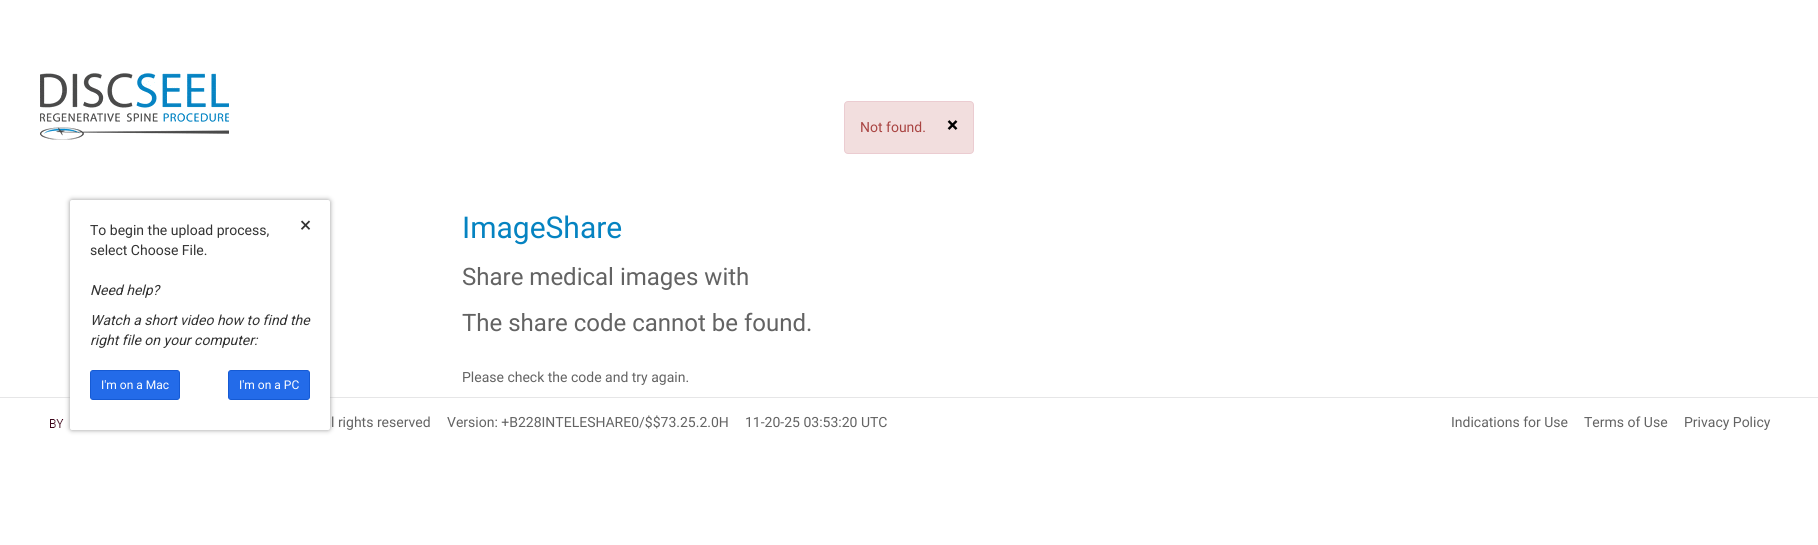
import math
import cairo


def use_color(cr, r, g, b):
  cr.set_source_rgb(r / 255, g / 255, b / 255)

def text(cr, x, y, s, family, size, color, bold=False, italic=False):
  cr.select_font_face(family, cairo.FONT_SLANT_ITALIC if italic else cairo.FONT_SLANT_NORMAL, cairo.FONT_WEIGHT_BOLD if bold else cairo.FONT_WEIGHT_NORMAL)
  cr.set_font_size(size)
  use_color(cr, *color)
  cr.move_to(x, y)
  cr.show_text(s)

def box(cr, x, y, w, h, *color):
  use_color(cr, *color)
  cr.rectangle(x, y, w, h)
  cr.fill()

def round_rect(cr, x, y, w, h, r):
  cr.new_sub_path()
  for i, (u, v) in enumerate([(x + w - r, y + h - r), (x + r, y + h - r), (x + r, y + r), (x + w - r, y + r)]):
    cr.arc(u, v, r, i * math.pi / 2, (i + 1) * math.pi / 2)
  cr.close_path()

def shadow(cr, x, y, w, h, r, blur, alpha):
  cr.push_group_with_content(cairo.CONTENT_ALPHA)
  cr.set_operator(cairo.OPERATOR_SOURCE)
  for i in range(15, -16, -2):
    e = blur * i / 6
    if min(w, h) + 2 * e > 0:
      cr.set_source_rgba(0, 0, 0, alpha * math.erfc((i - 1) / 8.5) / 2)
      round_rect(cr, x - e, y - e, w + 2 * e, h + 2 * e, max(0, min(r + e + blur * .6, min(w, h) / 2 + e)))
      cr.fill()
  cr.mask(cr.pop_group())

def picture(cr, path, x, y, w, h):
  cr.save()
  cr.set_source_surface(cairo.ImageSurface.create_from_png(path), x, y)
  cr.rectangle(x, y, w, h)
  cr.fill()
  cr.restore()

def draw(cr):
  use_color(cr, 255, 255, 255)
  cr.paint()
  use_color(cr, 242, 222, 222)
  round_rect(cr, 844.5, 101.5, 129, 52, 3.5)
  cr.fill_preserve()
  use_color(cr, 235, 204, 209)
  cr.set_line_width(1)
  cr.stroke()
  box(cr, 0, 397, 1818, 1, 230, 230, 231)
  picture(cr, "img_02.png", 50, 419, 14, 9)
  use_color(cr, 153, 153, 153)
  shadow(cr, 70, 200, 260, 230, 2, 2.5, 1)
  use_color(cr, 255, 255, 255)
  round_rect(cr, 70, 200, 260, 230, 2)
  cr.fill()
  use_color(cr, 35, 107, 233)
  round_rect(cr, 90.5, 370.5, 89, 29, 2.5)
  cr.fill_preserve()
  use_color(cr, 21, 90, 212)
  cr.stroke()
  use_color(cr, 35, 107, 233)
  round_rect(cr, 228.5, 370.5, 81, 29, 2.5)
  cr.fill_preserve()
  use_color(cr, 21, 90, 212)
  cr.stroke()
  picture(cr, "img_01.png", 40, 73, 189, 67)
  text(cr, 860, 132, "Not found.", "Roboto", 14, (169, 68, 66))
  text(cr, 947, 132, "×", "Roboto", 21, (0, 0, 0), bold=True)
  text(cr, 90, 235, "To begin the upload process,", "Roboto", 14, (51, 51, 51))
  text(cr, 90, 255, "select Choose File.", "Roboto", 14, (51, 51, 51))
  text(cr, 300, 232, "×", "Roboto", 21, (51, 51, 51))
  text(cr, 90, 295, "Need help?", "Roboto", 14, (51, 51, 51), italic=True)
  text(cr, 90, 325, "Watch a short video how to find the", "Roboto", 14, (51, 51, 51), italic=True)
  text(cr, 90, 345, "right file on your computer:", "Roboto", 14, (51, 51, 51), italic=True)
  text(cr, 101, 389, "I'm on a Mac", "Roboto", 12, (255, 255, 255))
  text(cr, 239, 389, "I'm on a PC", "Roboto", 12, (255, 255, 255))
  text(cr, 462, 238, "ImageShare", "Roboto", 30, (5, 131, 193))
  text(cr, 462, 285, "Share medical images with", "Roboto", 24, (99, 99, 99))
  text(cr, 462, 331, "The share code cannot be found.", "Roboto", 24, (99, 99, 99))
  text(cr, 462, 382, "Please check the code and try again.", "Roboto", 14, (99, 99, 99))
  text(cr, 331, 427, "l rights reserved", "Roboto", 14, (99, 99, 99))
  text(cr, 447, 427, "Version: +B228INTELESHARE0/$$73.25.2.0H", "Roboto", 14, (99, 99, 99))
  text(cr, 745, 427, "11-20-25 03:53:20 UTC", "Roboto", 14, (99, 99, 99))
  text(cr, 1451, 427, "Indications for Use", "Roboto", 14, (99, 99, 99))
  text(cr, 1584, 427, "Terms of Use", "Roboto", 14, (99, 99, 99))
  text(cr, 1684, 427, "Privacy Policy", "Roboto", 14, (99, 99, 99))


surface = cairo.ImageSurface(cairo.FORMAT_RGB24, 1818, 545)
cr = cairo.Context(surface)
options = cairo.FontOptions()
options.set_hint_metrics(cairo.HINT_METRICS_OFF)
options.set_hint_style(cairo.HINT_STYLE_NONE)
cr.set_font_options(options)
cr.set_miter_limit(4)
draw(cr)
surface.write_to_png("out.png")
